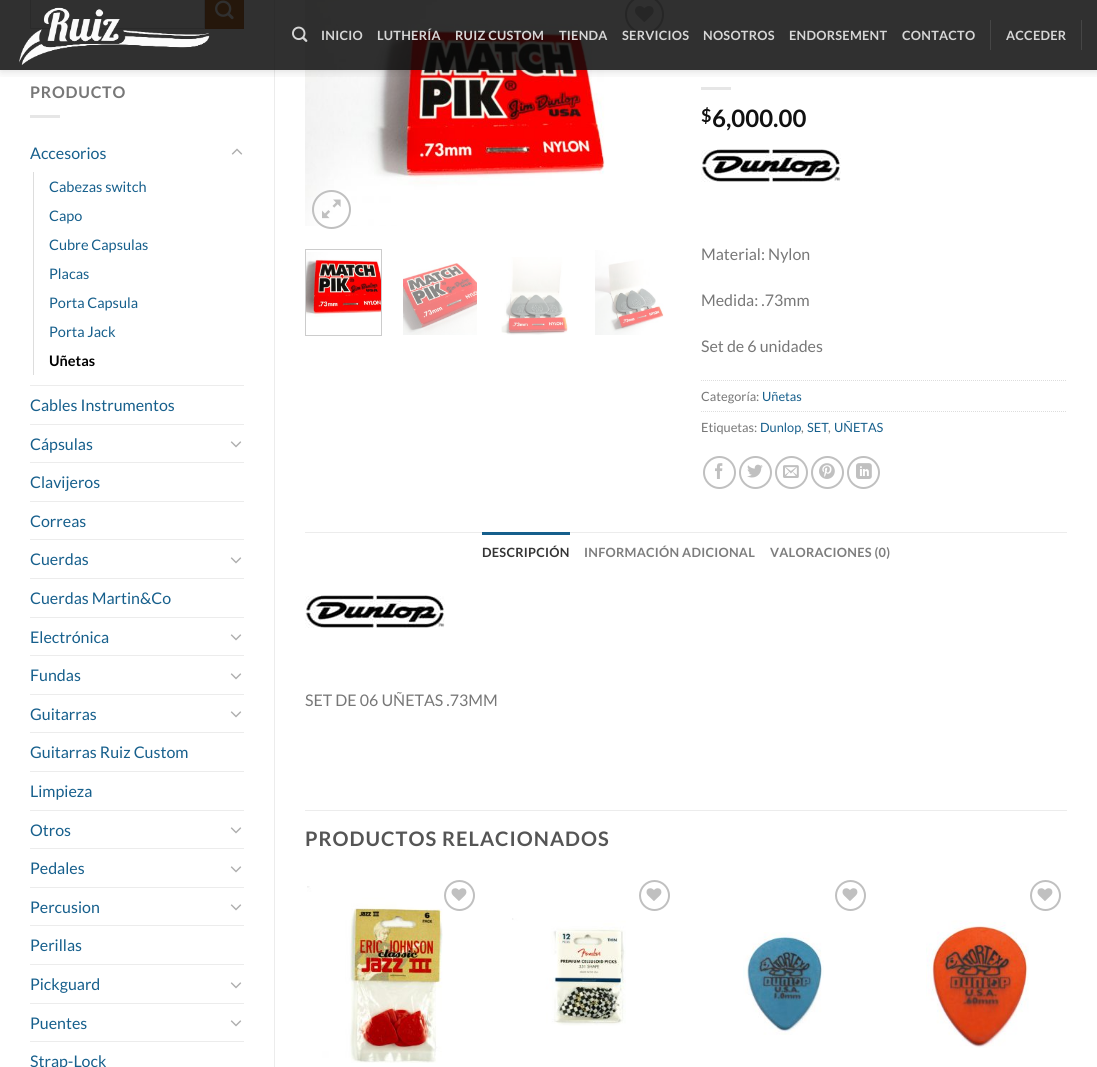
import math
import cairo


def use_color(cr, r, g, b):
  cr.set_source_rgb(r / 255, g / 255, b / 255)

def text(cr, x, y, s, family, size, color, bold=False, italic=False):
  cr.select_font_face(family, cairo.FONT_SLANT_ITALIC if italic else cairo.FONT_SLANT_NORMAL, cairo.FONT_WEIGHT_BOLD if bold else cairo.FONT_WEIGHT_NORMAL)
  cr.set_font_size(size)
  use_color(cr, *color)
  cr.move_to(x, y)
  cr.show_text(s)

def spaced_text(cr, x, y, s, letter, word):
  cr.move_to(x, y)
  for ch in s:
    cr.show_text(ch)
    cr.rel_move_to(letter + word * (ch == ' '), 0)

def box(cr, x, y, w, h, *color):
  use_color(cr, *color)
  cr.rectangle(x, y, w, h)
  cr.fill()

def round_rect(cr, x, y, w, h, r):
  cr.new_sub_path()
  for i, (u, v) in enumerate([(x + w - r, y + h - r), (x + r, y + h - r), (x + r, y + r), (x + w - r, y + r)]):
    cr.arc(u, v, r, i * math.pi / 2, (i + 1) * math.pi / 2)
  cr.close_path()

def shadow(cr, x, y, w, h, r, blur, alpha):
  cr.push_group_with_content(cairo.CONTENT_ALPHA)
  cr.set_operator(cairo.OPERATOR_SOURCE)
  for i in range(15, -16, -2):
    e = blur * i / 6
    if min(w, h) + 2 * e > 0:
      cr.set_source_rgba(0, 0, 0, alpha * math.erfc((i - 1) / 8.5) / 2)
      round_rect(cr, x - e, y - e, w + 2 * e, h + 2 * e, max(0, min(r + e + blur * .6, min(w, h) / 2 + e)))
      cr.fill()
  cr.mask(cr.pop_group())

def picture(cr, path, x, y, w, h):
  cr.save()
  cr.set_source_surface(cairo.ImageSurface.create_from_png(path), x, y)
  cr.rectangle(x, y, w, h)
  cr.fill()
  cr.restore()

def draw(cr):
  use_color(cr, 255, 255, 255)
  cr.paint()
  cr.rectangle(30.5, -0.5, 174, 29)
  use_color(cr, 221, 221, 221)
  cr.set_line_width(1)
  cr.stroke()
  use_color(cr, 191, 101, 23)
  cr.rectangle(205.5, -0.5, 38, 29)
  cr.fill_preserve()
  use_color(cr, 181, 96, 22)
  cr.stroke()
  picture(cr, "img_03.png", 215, 0, 19, 20)
  box(cr, 274, 0, 1, 1067, 236, 236, 236)
  picture(cr, "img_06.png", 305, 0, 300, 226)
  cr.arc(644.5, 14.5, 18.5, 0, 2 * math.pi)
  use_color(cr, 192, 192, 192)
  cr.set_line_width(2)
  cr.stroke()
  picture(cr, "img_07.png", 635, 6, 19, 16)
  cr.save()
  cr.rectangle(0, 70, 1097, 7)
  cr.clip()
  use_color(cr, 0, 0, 0)
  shadow(cr, 1, 1, 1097, 70, 0, 5, 0.15)
  cr.restore()
  cr.set_source_rgba(0.039, 0.039, 0.039, 0.6)
  cr.rectangle(0, 0, 1097, 70)
  cr.fill()
  cr.rectangle(0, 0, 1097, 70)
  cr.fill()
  picture(cr, "img_01.png", 19, 7, 191, 58)
  picture(cr, "img_02.png", 292, 26, 16, 16)
  box(cr, 990, 20, 1, 30, 70, 70, 70)
  box(cr, 1081, 20, 1, 30, 70, 70, 70)
  box(cr, 30, 115, 30, 3, 230, 230, 230)
  picture(cr, "img_04.png", 231, 148, 12, 7)
  box(cr, 33, 172, 1, 203, 221, 221, 221)
  box(cr, 30, 385, 214, 1, 236, 236, 236)
  box(cr, 30, 424, 214, 1, 236, 236, 236)
  picture(cr, "img_05.png", 230, 441, 12, 7)
  box(cr, 30, 462, 214, 1, 236, 236, 236)
  box(cr, 30, 501, 214, 1, 236, 236, 236)
  box(cr, 30, 539, 214, 1, 236, 236, 236)
  picture(cr, "img_05.png", 230, 557, 12, 7)
  box(cr, 30, 578, 214, 1, 236, 236, 236)
  box(cr, 30, 617, 214, 1, 236, 236, 236)
  picture(cr, "img_05.png", 230, 634, 12, 7)
  box(cr, 30, 655, 214, 1, 236, 236, 236)
  picture(cr, "img_05.png", 230, 673, 12, 7)
  box(cr, 30, 694, 214, 1, 236, 236, 236)
  picture(cr, "img_05.png", 230, 711, 12, 7)
  box(cr, 30, 732, 214, 1, 236, 236, 236)
  box(cr, 30, 771, 214, 1, 236, 236, 236)
  box(cr, 30, 810, 214, 1, 236, 236, 236)
  picture(cr, "img_05.png", 230, 827, 12, 7)
  box(cr, 30, 848, 214, 1, 236, 236, 236)
  picture(cr, "img_05.png", 230, 866, 12, 7)
  box(cr, 30, 887, 214, 1, 236, 236, 236)
  picture(cr, "img_05.png", 230, 904, 12, 7)
  box(cr, 30, 925, 214, 1, 236, 236, 236)
  box(cr, 30, 964, 214, 1, 236, 236, 236)
  picture(cr, "img_05.png", 230, 982, 12, 7)
  box(cr, 30, 1003, 214, 1, 236, 236, 236)
  picture(cr, "img_05.png", 230, 1020, 12, 7)
  box(cr, 30, 1041, 214, 1, 236, 236, 236)
  cr.arc(331.5, 209.5, 18.5, 0, 2 * math.pi)
  use_color(cr, 192, 192, 192)
  cr.stroke()
  picture(cr, "img_08.png", 322, 199, 19, 20)
  cr.rectangle(305.5, 249.5, 76, 86)
  use_color(cr, 204, 204, 204)
  cr.set_line_width(1)
  cr.stroke()
  picture(cr, "img_09.png", 306, 252, 75, 65)
  picture(cr, "img_10.png", 403, 263, 74, 72)
  picture(cr, "img_11.png", 501, 257, 67, 78)
  picture(cr, "img_12.png", 595, 250, 69, 85)
  box(cr, 701, 87, 30, 3, 230, 230, 230)
  picture(cr, "img_13.png", 701, 149, 140, 33)
  cr.new_path()
  cr.move_to(701, 380.5)
  cr.line_to(1067, 380.5)
  use_color(cr, 221, 221, 221)
  cr.set_dash([1, 1])
  cr.stroke()
  cr.new_path()
  cr.move_to(701, 411.5)
  cr.line_to(1067, 411.5)
  cr.stroke()
  cr.arc(719.5, 472.5, 15.5, 0, 2 * math.pi)
  use_color(cr, 192, 192, 192)
  cr.set_line_width(2)
  cr.set_dash([])
  cr.stroke()
  picture(cr, "img_14.png", 715, 463, 8, 16)
  cr.arc(755.5, 472.5, 15.5, 0, 2 * math.pi)
  cr.stroke()
  picture(cr, "img_15.png", 747, 464, 16, 14)
  cr.arc(791.5, 472.5, 15.5, 0, 2 * math.pi)
  cr.stroke()
  picture(cr, "img_16.png", 783, 465, 16, 13)
  cr.arc(827.5, 472.5, 15.5, 0, 2 * math.pi)
  cr.stroke()
  picture(cr, "img_17.png", 819, 463, 16, 16)
  cr.arc(863.5, 472.5, 15.5, 0, 2 * math.pi)
  cr.stroke()
  picture(cr, "img_18.png", 856, 463, 16, 16)
  box(cr, 305, 532, 762, 1, 236, 236, 236)
  box(cr, 482, 532, 88, 3, 22, 95, 140)
  picture(cr, "img_13.png", 305, 595, 140, 33)
  box(cr, 305, 810, 762, 1, 236, 236, 236)
  picture(cr, "img_19.png", 307, 886, 136, 177)
  cr.arc(459.5, 895.5, 14.5, 0, 2 * math.pi)
  use_color(cr, 192, 192, 192)
  cr.stroke()
  picture(cr, "img_20.png", 451, 888, 16, 13)
  cr.arc(654.5, 895.5, 14.5, 0, 2 * math.pi)
  cr.stroke()
  picture(cr, "img_20.png", 646, 888, 16, 13)
  picture(cr, "img_21.png", 512, 918, 114, 108)
  cr.arc(850.5, 895.5, 14.5, 0, 2 * math.pi)
  cr.stroke()
  picture(cr, "img_20.png", 842, 888, 16, 13)
  picture(cr, "img_22.png", 743, 932, 81, 103)
  cr.arc(1045.5, 895.5, 14.5, 0, 2 * math.pi)
  cr.stroke()
  picture(cr, "img_20.png", 1037, 888, 16, 13)
  picture(cr, "img_23.png", 926, 920, 103, 128)
  cr.select_font_face("Lato", cairo.FONT_SLANT_NORMAL, cairo.FONT_WEIGHT_BOLD)
  cr.set_font_size(12.75)
  use_color(cr, 214, 214, 214)
  spaced_text(cr, 321, 40, "INICIO", 0.25, 0)
  spaced_text(cr, 377, 40, "LUTHERÍA", 0.25, 0)
  spaced_text(cr, 455, 40, "RUIZ CUSTOM", 0.25, 0)
  spaced_text(cr, 559, 40, "TIENDA", 0.25, 0)
  spaced_text(cr, 622, 40, "SERVICIOS", 0.25, 0)
  spaced_text(cr, 703, 40, "NOSOTROS", 0.25, 0)
  spaced_text(cr, 789, 40, "ENDORSEMENT", 0.25, 0)
  spaced_text(cr, 902, 40, "CONTACTO", 0.25, 0)
  spaced_text(cr, 1006, 40, "ACCEDER", 0.25, 0)
  cr.set_font_size(16)
  use_color(cr, 119, 119, 119)
  spaced_text(cr, 30, 98, "PRODUCTO", 0.75, 0)
  text(cr, 30, 159, "Accesorios", "Lato", 16, (22, 95, 140))
  text(cr, 49, 192, "Cabezas switch", "Lato", 14.5, (22, 95, 140))
  text(cr, 49, 221, "Capo", "Lato", 14.5, (22, 95, 140))
  text(cr, 49, 250, "Cubre Capsulas", "Lato", 14.5, (22, 95, 140))
  text(cr, 49, 279, "Placas", "Lato", 14.5, (22, 95, 140))
  text(cr, 49, 308, "Porta Capsula", "Lato", 14.5, (22, 95, 140))
  text(cr, 49, 337, "Porta Jack", "Lato", 14.5, (22, 95, 140))
  text(cr, 49, 366, "Uñetas", "Lato", 14.5, (0, 0, 0), bold=True)
  text(cr, 30, 411, "Cables Instrumentos", "Lato", 16, (22, 95, 140))
  text(cr, 30, 450, "Cápsulas", "Lato", 16, (22, 95, 140))
  text(cr, 30, 488, "Clavijeros", "Lato", 16, (22, 95, 140))
  text(cr, 30, 527, "Correas", "Lato", 16, (22, 95, 140))
  text(cr, 30, 565, "Cuerdas", "Lato", 16, (22, 95, 140))
  text(cr, 30, 604, "Cuerdas Martin&Co", "Lato", 16, (22, 95, 140))
  text(cr, 30, 643, "Electrónica", "Lato", 16, (22, 95, 140))
  text(cr, 30, 681, "Fundas", "Lato", 16, (22, 95, 140))
  text(cr, 30, 720, "Guitarras", "Lato", 16, (22, 95, 140))
  text(cr, 30, 758, "Guitarras Ruiz Custom", "Lato", 16, (22, 95, 140))
  text(cr, 30, 797, "Limpieza", "Lato", 16, (22, 95, 140))
  text(cr, 30, 836, "Otros", "Lato", 16, (22, 95, 140))
  text(cr, 30, 874, "Pedales", "Lato", 16, (22, 95, 140))
  text(cr, 30, 913, "Percusion", "Lato", 16, (22, 95, 140))
  text(cr, 30, 951, "Perillas", "Lato", 16, (22, 95, 140))
  text(cr, 30, 990, "Pickguard", "Lato", 16, (22, 95, 140))
  text(cr, 30, 1029, "Puentes", "Lato", 16, (22, 95, 140))
  text(cr, 30, 1067, "Strap-Lock", "Lato", 16, (22, 95, 140))
  text(cr, 701, 122, "$", "Lato", 18, (17, 17, 17), bold=True)
  text(cr, 712, 127, "6,000.00", "Lato", 24, (17, 17, 17), bold=True)
  text(cr, 701, 260, "Material: Nylon", "Lato", 16, (119, 119, 119))
  text(cr, 701, 306, "Medida: .73mm", "Lato", 16, (119, 119, 119))
  text(cr, 701, 352, "Set de 6 unidades", "Lato", 16, (119, 119, 119))
  text(cr, 701, 401, "Categoría:", "Lato", 12.75, (119, 119, 119))
  text(cr, 762, 401, "Uñetas", "Lato", 12.75, (22, 95, 140))
  text(cr, 701, 432, "Etiquetas:", "Lato", 12.75, (119, 119, 119))
  text(cr, 760, 432, "Dunlop", "Lato", 12.75, (22, 95, 140))
  text(cr, 801, 432, ",", "Lato", 12.75, (119, 119, 119))
  text(cr, 807, 432, "SET", "Lato", 12.75, (22, 95, 140))
  text(cr, 828, 432, ",", "Lato", 12.75, (119, 119, 119))
  text(cr, 834, 432, "UÑETAS", "Lato", 12.75, (22, 95, 140))
  cr.select_font_face("Lato", cairo.FONT_SLANT_NORMAL, cairo.FONT_WEIGHT_BOLD)
  use_color(cr, 53, 53, 53)
  spaced_text(cr, 482, 557, "DESCRIPCIÓN", 0.25, 0)
  use_color(cr, 125, 125, 125)
  spaced_text(cr, 584, 557, "INFORMACIÓN ADICIONAL", 0.25, 0)
  spaced_text(cr, 770, 557, "VALORACIONES (0)", 0.25, 0)
  text(cr, 305, 706, "SET DE 06 UÑETAS .73MM", "Lato", 16, (119, 119, 119))
  cr.select_font_face("Lato", cairo.FONT_SLANT_NORMAL, cairo.FONT_WEIGHT_BOLD)
  cr.set_font_size(20)
  use_color(cr, 85, 85, 85)
  spaced_text(cr, 305, 846, "PRODUCTOS RELACIONADOS", 1, 0)


surface = cairo.ImageSurface(cairo.FORMAT_RGB24, 1097, 1067)
cr = cairo.Context(surface)
options = cairo.FontOptions()
options.set_hint_metrics(cairo.HINT_METRICS_OFF)
options.set_hint_style(cairo.HINT_STYLE_NONE)
cr.set_font_options(options)
cr.set_miter_limit(4)
draw(cr)
surface.write_to_png("out.png")
